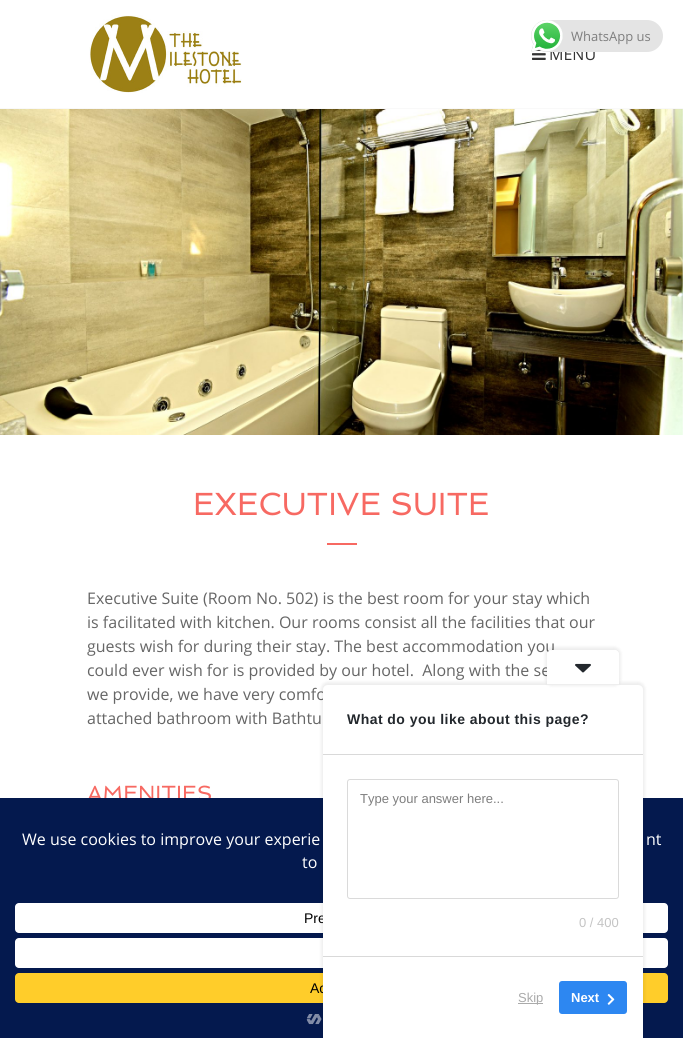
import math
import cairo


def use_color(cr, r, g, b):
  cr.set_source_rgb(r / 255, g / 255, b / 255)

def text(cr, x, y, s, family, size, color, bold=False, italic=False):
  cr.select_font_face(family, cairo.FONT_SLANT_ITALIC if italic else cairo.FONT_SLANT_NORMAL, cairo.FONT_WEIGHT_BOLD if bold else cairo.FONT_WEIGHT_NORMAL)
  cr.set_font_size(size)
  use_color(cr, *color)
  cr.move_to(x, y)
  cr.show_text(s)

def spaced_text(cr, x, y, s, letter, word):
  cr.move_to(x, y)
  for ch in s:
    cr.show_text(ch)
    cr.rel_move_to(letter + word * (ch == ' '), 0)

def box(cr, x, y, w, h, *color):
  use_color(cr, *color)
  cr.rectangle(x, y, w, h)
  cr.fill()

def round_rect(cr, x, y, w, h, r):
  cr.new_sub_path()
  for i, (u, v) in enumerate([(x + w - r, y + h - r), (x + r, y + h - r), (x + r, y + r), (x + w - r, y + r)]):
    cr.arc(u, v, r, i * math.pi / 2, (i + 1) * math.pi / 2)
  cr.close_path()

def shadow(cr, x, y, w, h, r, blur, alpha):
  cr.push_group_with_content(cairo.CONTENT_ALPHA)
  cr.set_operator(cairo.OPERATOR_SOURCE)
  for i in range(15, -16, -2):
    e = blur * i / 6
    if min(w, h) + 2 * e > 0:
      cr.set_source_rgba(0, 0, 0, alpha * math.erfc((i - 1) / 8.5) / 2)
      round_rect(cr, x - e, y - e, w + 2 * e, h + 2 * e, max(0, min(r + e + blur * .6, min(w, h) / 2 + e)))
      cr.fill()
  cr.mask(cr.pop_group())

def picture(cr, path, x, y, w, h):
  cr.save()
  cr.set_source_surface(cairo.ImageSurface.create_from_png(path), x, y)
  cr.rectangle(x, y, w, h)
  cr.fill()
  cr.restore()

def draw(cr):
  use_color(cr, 255, 255, 255)
  cr.paint()
  box(cr, 0, 108, 683, 1, 249, 249, 249)
  picture(cr, "img_02.png", 89, 15, 153, 78)
  picture(cr, "img_03.png", 532, 49, 14, 11)
  picture(cr, "img_04.png", 0, 109, 683, 326)
  box(cr, 327, 543, 30, 2, 247, 105, 98)
  text(cr, 549, 60, "MENU", "Open Sans", 16, (51, 51, 51))
  use_color(cr, 228, 228, 228)
  round_rect(cr, 531, 20, 132, 32, 16)
  cr.fill()
  picture(cr, "img_01.png", 531, 20, 32, 32)
  text(cr, 571, 41, "WhatsApp us", "Open Sans", 13, (126, 126, 126))
  text(cr, 193, 515, "EXECUTIVE SUITE", "Spinnaker", 32, (247, 105, 98))
  text(cr, 87, 604, "Executive Suite (Room No. 502) is the best room for your stay which", "Open Sans", 16, (102, 102, 102))
  text(cr, 87, 628, "is facilitated with kitchen. Our rooms consist all the facilities that our", "Open Sans", 16, (102, 102, 102))
  text(cr, 87, 652, "guests wish for during their stay. The best accommodation you", "Open Sans", 16, (102, 102, 102))
  text(cr, 87, 676, "could ever wish for is provided by our hotel.  Along with the se", "Open Sans", 16, (102, 102, 102))
  text(cr, 87, 700, "we provide, we have very comfo", "Open Sans", 16, (102, 102, 102))
  text(cr, 87, 724, "attached bathroom with Bathtu", "Open Sans", 16, (102, 102, 102))
  text(cr, 87, 801, "AMENITIES", "Spinnaker", 22, (247, 105, 98))
  box(cr, 0, 798, 683, 240, 4, 25, 78)
  text(cr, 22, 845, "We use cookies to improve your experie", "Open Sans", 16, (255, 255, 255))
  text(cr, 646, 845, "nt", "Open Sans", 16, (255, 255, 255))
  text(cr, 302, 868, "to", "Open Sans", 16, (255, 255, 255))
  round_rect(cr, 15, 903, 653, 30, 4)
  cr.fill()
  text(cr, 304, 923, "Pre", "Liberation Sans", 14, (0, 0, 0))
  use_color(cr, 255, 255, 255)
  round_rect(cr, 15, 938, 653, 30, 4)
  cr.fill()
  use_color(cr, 255, 205, 42)
  round_rect(cr, 15, 973, 653, 30, 4)
  cr.fill()
  text(cr, 310, 993, "Ac", "Liberation Sans", 14, (0, 0, 0))
  picture(cr, "img_05.png", 306, 1014, 16, 11)
  use_color(cr, 0, 0, 0)
  shadow(cr, 321, 682, 324, 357, 7, 1.5, 0.07)
  use_color(cr, 255, 255, 255)
  cr.new_path()
  cr.move_to(328, 685)
  cr.line_to(638, 685)
  cr.curve_to(641, 685, 643, 687, 643, 690)
  cr.line_to(643, 1038)
  cr.line_to(323, 1038)
  cr.line_to(323, 690)
  cr.curve_to(323, 687, 325, 685, 328, 685)
  cr.close_path()
  cr.fill()
  cr.save()
  cr.set_fill_rule(cairo.FILL_RULE_EVEN_ODD)
  cr.new_path()
  cr.move_to(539, 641)
  cr.line_to(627, 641)
  cr.line_to(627, 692)
  cr.line_to(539, 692)
  cr.close_path()
  cr.move_to(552, 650)
  cr.line_to(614, 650)
  cr.curve_to(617, 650, 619, 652, 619, 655)
  cr.line_to(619, 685)
  cr.line_to(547, 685)
  cr.line_to(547, 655)
  cr.curve_to(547, 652, 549, 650, 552, 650)
  cr.close_path()
  cr.clip()
  use_color(cr, 0, 0, 0)
  shadow(cr, 545, 647, 76, 39, 7, 1.5, 0.07)
  cr.restore()
  cr.new_path()
  cr.move_to(552, 650)
  cr.line_to(614, 650)
  cr.curve_to(617, 650, 619, 652, 619, 655)
  cr.line_to(619, 684)
  cr.line_to(547, 684)
  cr.line_to(547, 655)
  cr.curve_to(547, 652, 549, 650, 552, 650)
  cr.close_path()
  cr.fill()
  picture(cr, "img_06.png", 575, 663, 16, 10)
  cr.select_font_face("Liberation Sans", cairo.FONT_SLANT_NORMAL, cairo.FONT_WEIGHT_BOLD)
  use_color(cr, 35, 40, 45)
  spaced_text(cr, 347, 724, "What do you like about this page?", 0.45, 0)
  box(cr, 323, 754, 320, 1, 217, 217, 217)
  box(cr, 323, 956, 320, 1, 217, 217, 217)
  round_rect(cr, 347.5, 779.5, 271, 119, 2.5)
  use_color(cr, 218, 218, 218)
  cr.set_line_width(1)
  cr.stroke()
  text(cr, 360, 803, "Type your answer here...", "Liberation Sans", 13, (126, 126, 126))
  text(cr, 579, 927, "0 / 400", "Liberation Sans", 13, (196, 196, 196))
  box(cr, 518, 1003, 25, 1, 170, 170, 170)
  text(cr, 518, 1002, "Skip", "Liberation Sans", 13, (170, 170, 170))
  use_color(cr, 45, 135, 241)
  round_rect(cr, 559, 981, 68, 33, 3)
  cr.fill()
  text(cr, 571, 1002, "Next", "Liberation Sans", 13, (255, 255, 255), bold=True)
  picture(cr, "img_07.png", 607, 994, 8, 11)


surface = cairo.ImageSurface(cairo.FORMAT_RGB24, 683, 1038)
cr = cairo.Context(surface)
options = cairo.FontOptions()
options.set_hint_metrics(cairo.HINT_METRICS_OFF)
options.set_hint_style(cairo.HINT_STYLE_NONE)
cr.set_font_options(options)
cr.set_miter_limit(4)
draw(cr)
surface.write_to_png("out.png")
